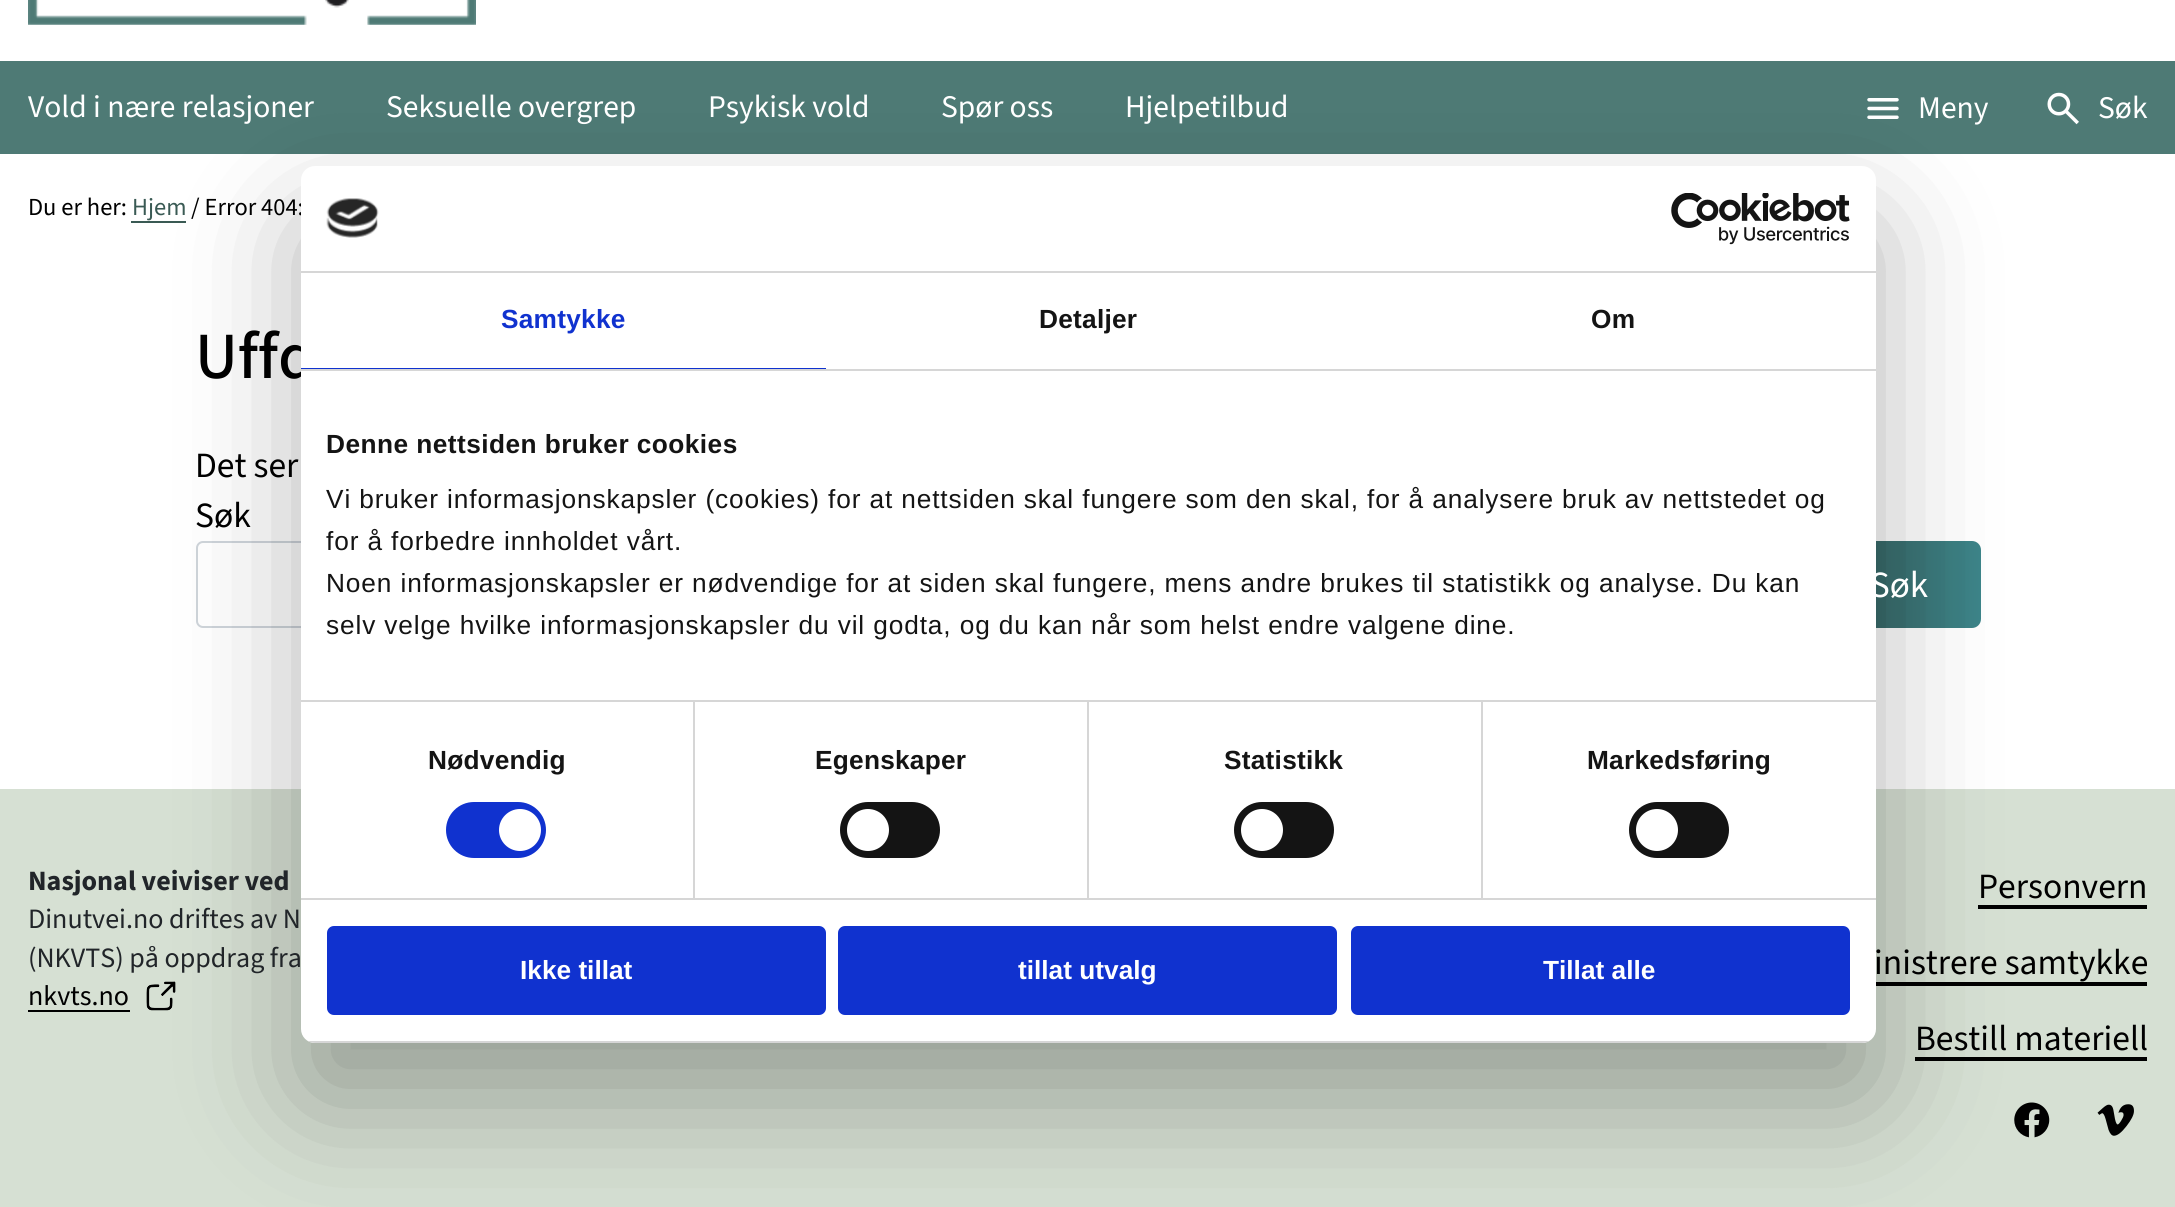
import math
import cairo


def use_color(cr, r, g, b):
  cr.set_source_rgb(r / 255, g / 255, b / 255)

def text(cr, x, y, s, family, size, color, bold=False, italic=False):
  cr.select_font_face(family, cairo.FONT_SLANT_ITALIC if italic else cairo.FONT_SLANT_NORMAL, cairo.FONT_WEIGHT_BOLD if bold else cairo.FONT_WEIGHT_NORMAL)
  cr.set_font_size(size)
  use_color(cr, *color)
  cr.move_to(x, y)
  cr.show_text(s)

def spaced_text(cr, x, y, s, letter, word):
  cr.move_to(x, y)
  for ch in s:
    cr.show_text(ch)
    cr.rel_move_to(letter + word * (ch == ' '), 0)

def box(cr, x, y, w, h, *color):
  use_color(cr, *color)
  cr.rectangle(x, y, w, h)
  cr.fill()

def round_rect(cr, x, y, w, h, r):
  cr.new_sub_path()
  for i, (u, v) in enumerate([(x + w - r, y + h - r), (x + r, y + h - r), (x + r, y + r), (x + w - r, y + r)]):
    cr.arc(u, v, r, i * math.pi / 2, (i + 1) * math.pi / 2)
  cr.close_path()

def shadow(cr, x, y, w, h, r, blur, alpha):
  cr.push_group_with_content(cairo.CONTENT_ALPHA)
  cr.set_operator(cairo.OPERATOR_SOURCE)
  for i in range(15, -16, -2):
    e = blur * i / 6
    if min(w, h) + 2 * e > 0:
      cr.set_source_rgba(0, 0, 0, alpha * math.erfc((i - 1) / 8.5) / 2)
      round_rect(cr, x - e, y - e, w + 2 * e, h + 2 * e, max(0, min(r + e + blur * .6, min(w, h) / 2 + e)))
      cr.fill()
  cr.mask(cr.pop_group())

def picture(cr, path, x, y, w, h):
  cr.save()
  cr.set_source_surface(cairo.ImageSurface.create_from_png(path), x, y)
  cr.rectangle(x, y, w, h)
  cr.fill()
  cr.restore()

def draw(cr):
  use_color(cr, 255, 255, 255)
  cr.paint()
  picture(cr, "img_01.png", 28, 0, 448, 25)
  box(cr, 0, 61, 2175, 93, 78, 122, 117)
  picture(cr, "img_02.png", 1867, 98, 32, 21)
  picture(cr, "img_03.png", 2047, 92, 32, 33)
  box(cr, 131, 221, 55, 2, 58, 90, 84)
  round_rect(cr, 197, 542, 1603, 85, 6)
  use_color(cr, 206, 212, 218)
  cr.stroke()
  gradient = cairo.LinearGradient(1818, 585, 1981, 585)
  gradient.add_color_stop_rgba(0, 0.216, 0.369, 0.357, 1)
  gradient.add_color_stop_rgba(1, 0.239, 0.522, 0.541, 1)
  cr.set_source(gradient)
  round_rect(cr, 1818, 541, 163, 87, 9)
  cr.fill()
  box(cr, 0, 789, 2175, 418, 214, 224, 211)
  box(cr, 28, 1010, 102, 2, 0, 0, 0)
  picture(cr, "img_04.png", 146, 981, 30, 30)
  box(cr, 1978, 905, 169, 4, 0, 0, 0)
  box(cr, 1876, 982, 271, 4, 0, 0, 0)
  box(cr, 1915, 1057, 232, 4, 0, 0, 0)
  picture(cr, "img_05.png", 2014, 1102, 36, 36)
  picture(cr, "img_06.png", 2097, 1104, 37, 32)
  use_color(cr, 0, 0, 0)
  shadow(cr, 301, 222, 1575, 877, 14, 59.5, 0.3)
  text(cr, 28, 117, "Vold i nære relasjoner", "Source Sans 3", 31.5, (255, 255, 255))
  text(cr, 386, 117, "Seksuelle overgrep", "Source Sans 3", 31.5, (255, 255, 255))
  text(cr, 708, 117, "Psykisk vold", "Source Sans 3", 31.5, (255, 255, 255))
  text(cr, 941, 117, "Spør oss", "Source Sans 3", 31.5, (255, 255, 255))
  text(cr, 1125, 117, "Hjelpetilbud", "Source Sans 3", 31.5, (255, 255, 255))
  text(cr, 1918, 118, "Meny", "Source Sans 3", 31.5, (255, 255, 255))
  text(cr, 2098, 118, "Søk", "Source Sans 3", 31.5, (255, 255, 255))
  text(cr, 28, 215, "Du er her:", "Source Sans 3", 24.5, (0, 0, 0))
  text(cr, 132, 215, "Hjem", "Source Sans 3", 24.5, (58, 90, 84))
  text(cr, 191, 215, "/ Error 404:", "Source Sans 3", 24.5, (0, 0, 0))
  text(cr, 195, 378, "Uffd", "Source Sans 3 Medium", 66, (0, 0, 0))
  text(cr, 195, 477, "Det ser", "Source Sans 3", 35.5, (0, 0, 0))
  text(cr, 195, 527, "Søk", "Source Sans 3", 35.5, (0, 0, 0))
  text(cr, 1870, 597, "Søk", "Source Sans 3", 37, (255, 255, 255))
  text(cr, 28, 890, "Nasjonal veiviser ved", "Source Sans 3", 28, (33, 37, 41), bold=True)
  text(cr, 28, 928, "Dinutvei.no driftes av N", "Source Sans 3", 28, (33, 37, 41))
  text(cr, 28, 967, "(NKVTS) på oppdrag fra", "Source Sans 3", 28, (33, 37, 41))
  text(cr, 28, 1005, "nkvts.no", "Source Sans 3", 28, (0, 0, 0))
  text(cr, 1978, 898, "Personvern", "Source Sans 3", 35.5, (0, 0, 0))
  text(cr, 1874, 974, "inistrere samtykke", "Source Sans 3", 35.5, (0, 0, 0))
  text(cr, 1915, 1050, "Bestill materiell", "Source Sans 3", 35.5, (0, 0, 0))
  use_color(cr, 255, 255, 255)
  round_rect(cr, 301, 166, 1575, 877, 14)
  cr.fill()
  box(cr, 301, 271, 1575, 2, 214, 214, 214)
  picture(cr, "img_07.png", 326, 198, 53, 40)
  picture(cr, "img_08.png", 1671, 193, 179, 52)
  box(cr, 301, 369, 1575, 2, 214, 214, 214)
  box(cr, 301, 368, 525, 1, 16, 50, 207)
  cr.select_font_face("Liberation Sans", cairo.FONT_SLANT_NORMAL, cairo.FONT_WEIGHT_BOLD)
  cr.set_font_size(26.25)
  spaced_text(cr, 501, 328, "Samtykke", 0.25, 0)
  use_color(cr, 20, 20, 20)
  spaced_text(cr, 1039, 328, "Detaljer", 0.25, 0)
  spaced_text(cr, 1591, 328, "Om", 0.25, 0)
  box(cr, 301, 700, 1575, 2, 214, 214, 214)
  use_color(cr, 20, 20, 20)
  spaced_text(cr, 326, 453, "Denne nettsiden bruker cookies", 0.45, 0)
  cr.select_font_face("Liberation Sans")
  spaced_text(cr, 326, 508, "Vi bruker informasjonskapsler (cookies) for at nettsiden skal fungere som den skal, for å analysere bruk av nettstedet og", 0.88, 0)
  spaced_text(cr, 326, 550, "for å forbedre innholdet vårt.", 0.88, 0)
  spaced_text(cr, 326, 592, "Noen informasjonskapsler er nødvendige for at siden skal fungere, mens andre brukes til statistikk og analyse. Du kan", 0.88, 0)
  spaced_text(cr, 326, 634, "selv velge hvilke informasjonskapsler du vil godta, og du kan når som helst endre valgene dine.", 0.88, 0)
  box(cr, 301, 898, 1575, 2, 214, 214, 214)
  box(cr, 693, 702, 2, 196, 214, 214, 214)
  cr.select_font_face("Liberation Sans", cairo.FONT_SLANT_NORMAL, cairo.FONT_WEIGHT_BOLD)
  use_color(cr, 20, 20, 20)
  spaced_text(cr, 428, 769, "Nødvendig", 0.25, 0)
  use_color(cr, 16, 50, 207)
  round_rect(cr, 446, 802, 100, 56, 28)
  cr.fill()
  use_color(cr, 255, 255, 255)
  cr.arc(520, 830, 21, 0, 2 * math.pi)
  cr.fill()
  box(cr, 1087, 702, 2, 196, 214, 214, 214)
  use_color(cr, 20, 20, 20)
  spaced_text(cr, 815, 769, "Egenskaper", 0.25, 0)
  round_rect(cr, 840, 802, 100, 56, 28)
  cr.fill()
  use_color(cr, 255, 255, 255)
  cr.arc(868, 830, 21, 0, 2 * math.pi)
  cr.fill()
  box(cr, 1481, 702, 2, 196, 214, 214, 214)
  use_color(cr, 20, 20, 20)
  spaced_text(cr, 1224, 769, "Statistikk", 0.25, 0)
  round_rect(cr, 1234, 802, 100, 56, 28)
  cr.fill()
  use_color(cr, 255, 255, 255)
  cr.arc(1262, 830, 21, 0, 2 * math.pi)
  cr.fill()
  use_color(cr, 20, 20, 20)
  spaced_text(cr, 1587, 769, "Markedsføring", 0.25, 0)
  round_rect(cr, 1629, 802, 100, 56, 28)
  cr.fill()
  use_color(cr, 255, 255, 255)
  cr.arc(1657, 830, 21, 0, 2 * math.pi)
  cr.fill()
  cr.save()
  round_rect(cr, 301, 166, 1575, 877, 14)
  cr.clip()
  box(cr, 301, 1041, 1575, 2, 214, 214, 214)
  cr.restore()
  use_color(cr, 16, 50, 207)
  round_rect(cr, 329, 928, 495, 85, 5)
  cr.fill_preserve()
  cr.set_line_width(4)
  cr.stroke()
  text(cr, 520, 979, "Ikke tillat", "Liberation Sans", 26.25, (255, 255, 255), bold=True)
  use_color(cr, 16, 50, 207)
  round_rect(cr, 840, 928, 495, 85, 5)
  cr.fill_preserve()
  cr.stroke()
  text(cr, 1018, 979, "tillat utvalg", "Liberation Sans", 26.25, (255, 255, 255), bold=True)
  use_color(cr, 16, 50, 207)
  round_rect(cr, 1353, 928, 495, 85, 5)
  cr.fill_preserve()
  cr.stroke()
  text(cr, 1543, 979, "Tillat alle", "Liberation Sans", 26.25, (255, 255, 255), bold=True)


surface = cairo.ImageSurface(cairo.FORMAT_RGB24, 2175, 1207)
cr = cairo.Context(surface)
options = cairo.FontOptions()
options.set_hint_metrics(cairo.HINT_METRICS_OFF)
options.set_hint_style(cairo.HINT_STYLE_NONE)
cr.set_font_options(options)
cr.set_miter_limit(4)
draw(cr)
surface.write_to_png("out.png")
